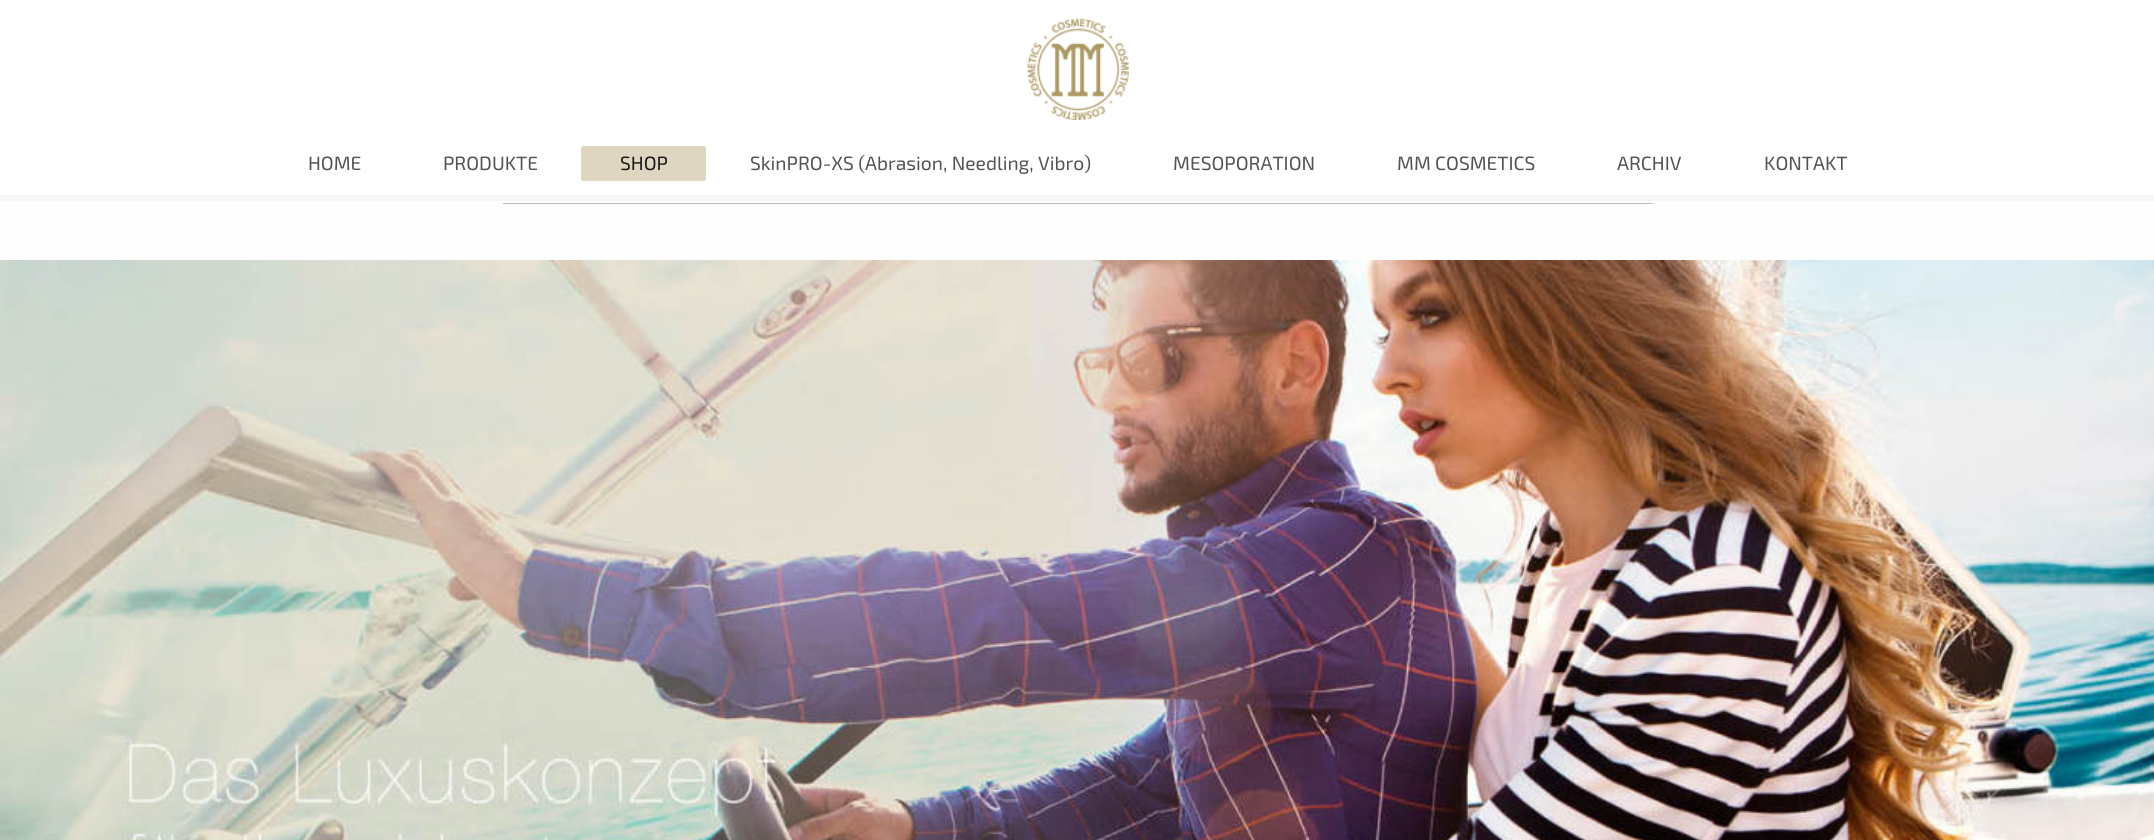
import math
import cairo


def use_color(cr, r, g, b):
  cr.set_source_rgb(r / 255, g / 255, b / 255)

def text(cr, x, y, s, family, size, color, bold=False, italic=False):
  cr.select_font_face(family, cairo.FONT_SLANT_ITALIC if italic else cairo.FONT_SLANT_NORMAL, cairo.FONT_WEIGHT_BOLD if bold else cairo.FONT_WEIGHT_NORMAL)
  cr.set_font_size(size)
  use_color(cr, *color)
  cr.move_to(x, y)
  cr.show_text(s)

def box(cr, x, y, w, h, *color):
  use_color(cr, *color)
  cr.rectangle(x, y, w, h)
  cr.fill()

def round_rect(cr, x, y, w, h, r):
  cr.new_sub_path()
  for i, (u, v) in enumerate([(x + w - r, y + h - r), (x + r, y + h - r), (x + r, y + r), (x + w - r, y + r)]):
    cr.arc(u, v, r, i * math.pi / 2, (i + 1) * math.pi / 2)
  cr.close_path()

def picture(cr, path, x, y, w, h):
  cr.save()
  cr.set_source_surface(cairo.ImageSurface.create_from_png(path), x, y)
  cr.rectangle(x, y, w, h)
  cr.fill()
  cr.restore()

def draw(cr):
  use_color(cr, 245, 246, 248)
  cr.paint()
  box(cr, 0, 0, 2154, 195, 255, 255, 255)
  picture(cr, "img_01.png", 1027, 18, 102, 102)
  use_color(cr, 223, 214, 193)
  round_rect(cr, 581, 146, 125, 35, 2.5)
  cr.fill()
  box(cr, 704, 180, 1, 1, 223, 214, 193)
  box(cr, 0, 201, 2154, 59, 254, 254, 255)
  box(cr, 503, 203, 1150, 1, 186, 186, 186)
  picture(cr, "img_02.png", 0, 260, 2154, 580)
  text(cr, 308, 170, "HOME", "Exo 2", 19.25, (83, 83, 83))
  text(cr, 443, 170, "PRODUKTE", "Exo 2", 19.25, (83, 83, 83))
  text(cr, 620, 170, "SHOP", "Exo 2", 19.25, (27, 25, 22))
  text(cr, 750, 170, "SkinPRO-XS (Abrasion, Needling, Vibro)", "Exo 2", 19.25, (83, 83, 83))
  text(cr, 1173, 170, "MESOPORATION", "Exo 2", 19.25, (83, 83, 83))
  text(cr, 1397, 170, "MM COSMETICS", "Exo 2", 19.25, (83, 83, 83))
  text(cr, 1617, 170, "ARCHIV", "Exo 2", 19.25, (83, 83, 83))
  text(cr, 1764, 170, "KONTAKT", "Exo 2", 19.25, (83, 83, 83))


surface = cairo.ImageSurface(cairo.FORMAT_RGB24, 2154, 840)
cr = cairo.Context(surface)
options = cairo.FontOptions()
options.set_hint_metrics(cairo.HINT_METRICS_OFF)
options.set_hint_style(cairo.HINT_STYLE_NONE)
cr.set_font_options(options)
cr.set_miter_limit(4)
draw(cr)
surface.write_to_png("out.png")
